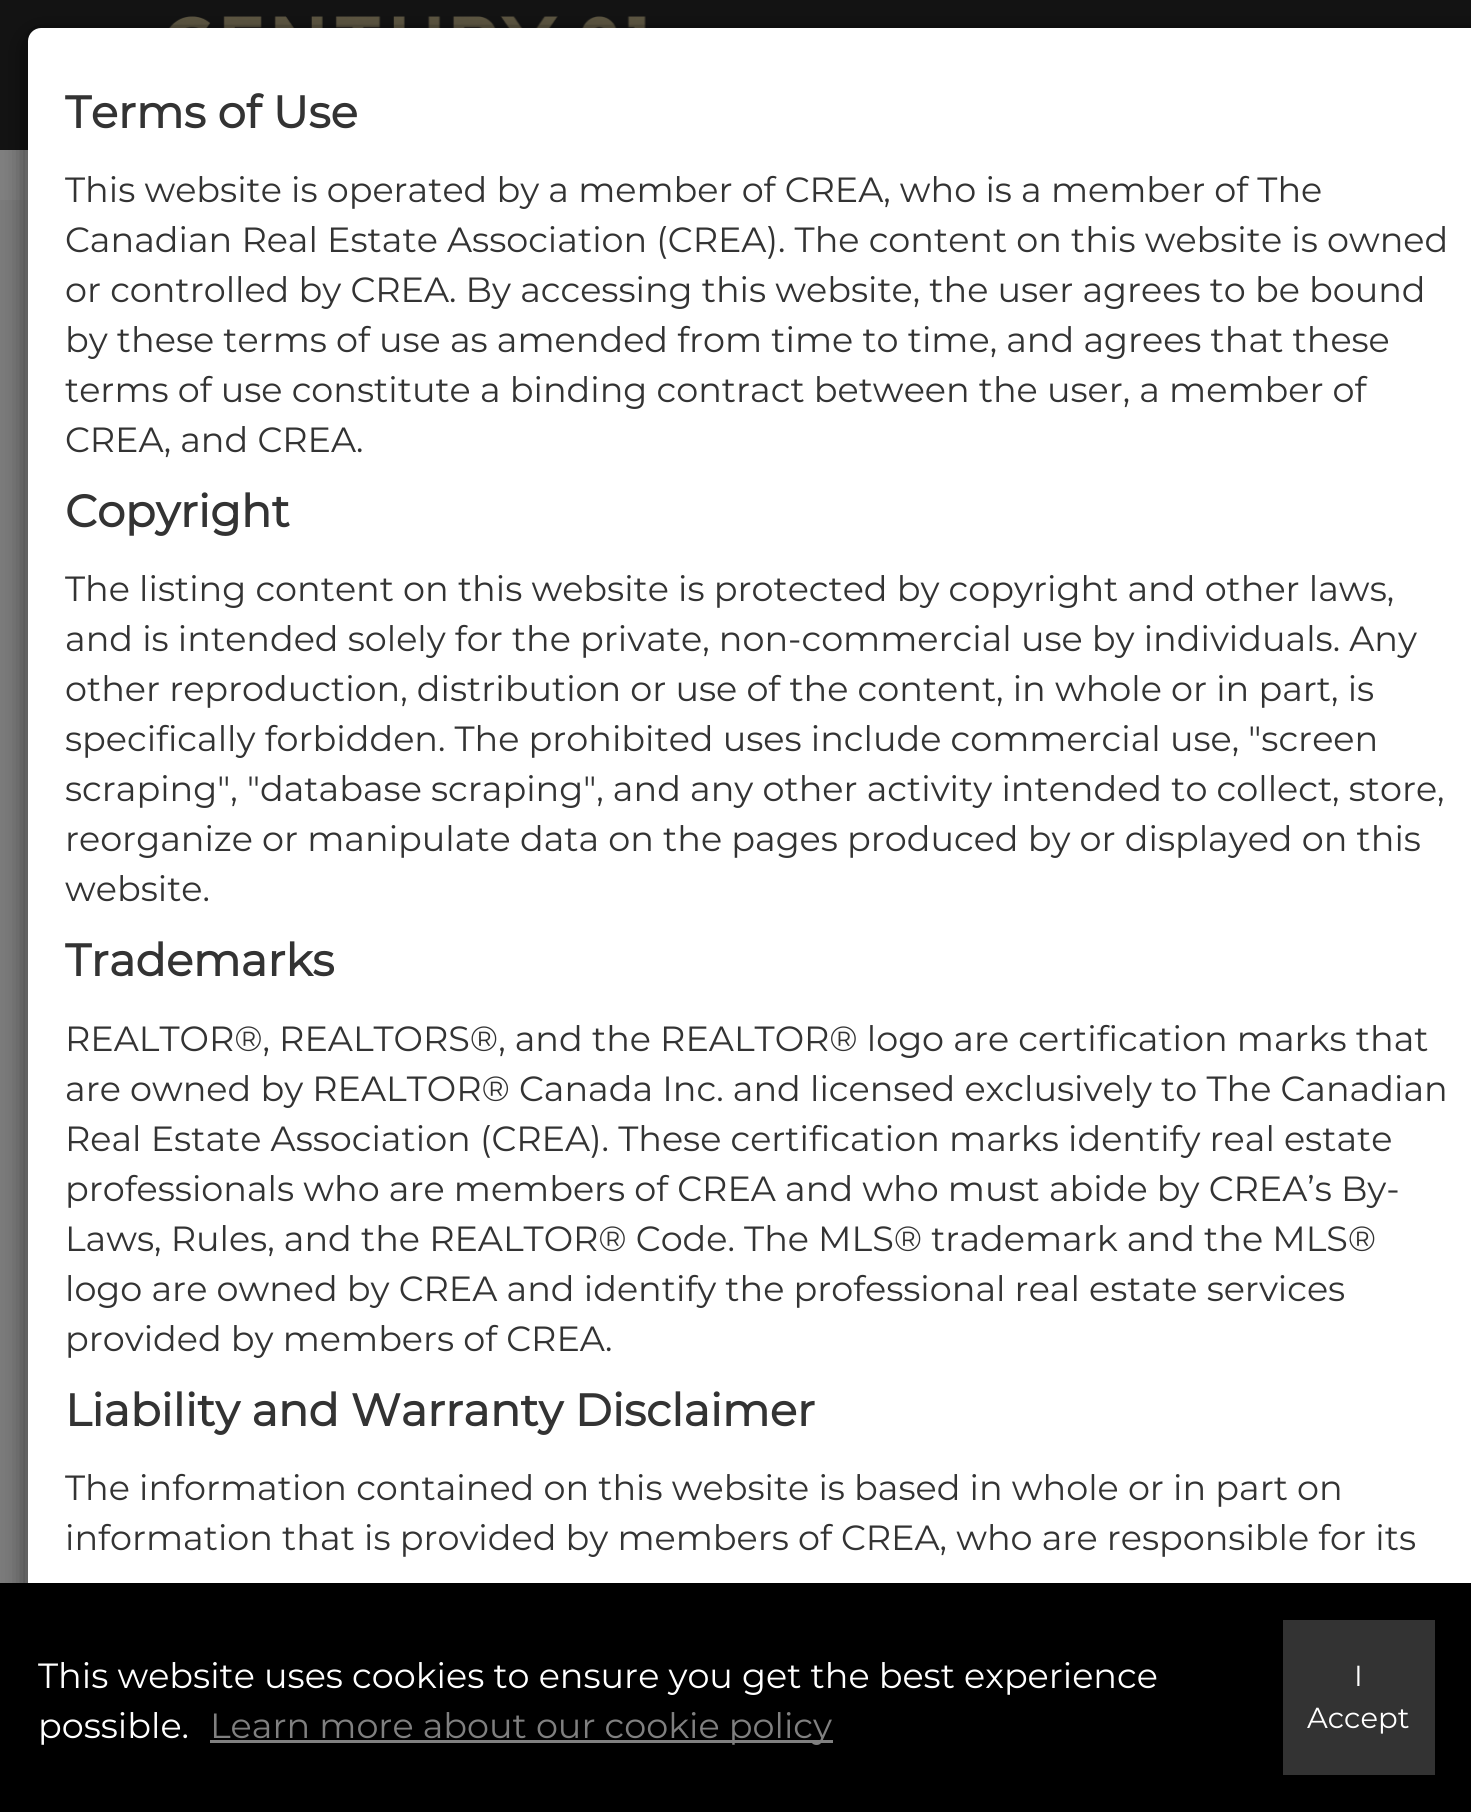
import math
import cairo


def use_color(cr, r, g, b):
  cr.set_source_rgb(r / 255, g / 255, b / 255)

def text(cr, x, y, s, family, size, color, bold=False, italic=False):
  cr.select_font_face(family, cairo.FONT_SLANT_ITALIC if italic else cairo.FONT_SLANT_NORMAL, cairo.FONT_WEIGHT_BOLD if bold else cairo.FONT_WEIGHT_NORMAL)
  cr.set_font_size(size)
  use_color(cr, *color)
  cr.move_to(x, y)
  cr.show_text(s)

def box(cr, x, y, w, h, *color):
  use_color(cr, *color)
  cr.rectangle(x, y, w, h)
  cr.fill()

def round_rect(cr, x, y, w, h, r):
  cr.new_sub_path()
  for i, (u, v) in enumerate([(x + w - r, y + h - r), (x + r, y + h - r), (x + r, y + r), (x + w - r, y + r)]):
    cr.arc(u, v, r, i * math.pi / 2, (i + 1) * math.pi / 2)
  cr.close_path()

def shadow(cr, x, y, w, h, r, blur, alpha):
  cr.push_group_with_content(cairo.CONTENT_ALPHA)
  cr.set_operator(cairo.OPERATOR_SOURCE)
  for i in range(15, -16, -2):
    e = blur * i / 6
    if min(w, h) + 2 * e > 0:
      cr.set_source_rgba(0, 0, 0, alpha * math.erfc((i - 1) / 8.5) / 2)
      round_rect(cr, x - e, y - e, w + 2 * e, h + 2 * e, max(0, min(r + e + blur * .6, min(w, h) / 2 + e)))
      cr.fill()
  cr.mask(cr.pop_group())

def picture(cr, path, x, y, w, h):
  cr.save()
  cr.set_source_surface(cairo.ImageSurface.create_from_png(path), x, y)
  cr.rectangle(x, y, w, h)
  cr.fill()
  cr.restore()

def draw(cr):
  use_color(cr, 123, 123, 123)
  cr.paint()
  box(cr, 0, 150, 28, 50, 128, 128, 128)
  box(cr, 0, 0, 1471, 150, 19, 19, 19)
  picture(cr, "img_01.png", 169, 16, 477, 12)
  cr.save()
  cr.set_fill_rule(cairo.FILL_RULE_EVEN_ODD)
  cr.new_path()
  cr.move_to(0, 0)
  cr.line_to(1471, 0)
  cr.line_to(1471, 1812)
  cr.line_to(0, 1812)
  cr.close_path()
  cr.move_to(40, 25)
  cr.line_to(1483, 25)
  cr.curve_to(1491.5, 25, 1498, 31.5, 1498, 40)
  cr.line_to(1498, 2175)
  cr.curve_to(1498, 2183.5, 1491.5, 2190, 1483, 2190)
  cr.line_to(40, 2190)
  cr.curve_to(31.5, 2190, 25, 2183.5, 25, 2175)
  cr.line_to(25, 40)
  cr.curve_to(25, 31.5, 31.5, 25, 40, 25)
  cr.close_path()
  cr.clip()
  use_color(cr, 0, 0, 0)
  shadow(cr, 25, 33, 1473, 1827, 15, 11, 0.5)
  cr.restore()
  use_color(cr, 255, 255, 255)
  cr.new_path()
  cr.move_to(41, 28)
  cr.line_to(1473, 28)
  cr.line_to(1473, 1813)
  cr.line_to(28, 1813)
  cr.line_to(28, 41)
  cr.curve_to(28, 34, 34, 28, 41, 28)
  cr.close_path()
  cr.fill()
  round_rect(cr, 26.5, 26.5, 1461, 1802, 13.5)
  cr.set_source_rgba(0, 0, 0, 0.2)
  cr.set_line_width(3)
  cr.stroke()
  box(cr, 0, 1583, 1471, 229, 0, 0, 0)
  box(cr, 210, 1740, 623, 3, 128, 128, 128)
  box(cr, 1283, 1620, 152, 155, 51, 51, 51)
  text(cr, 65, 128, "Terms of Use", "Montserrat", 45, (51, 51, 51), bold=True)
  text(cr, 65, 202, "This website is operated by a member of CREA, who is a member of The", "Montserrat Thin", 35, (51, 51, 51))
  text(cr, 65, 252, "Canadian Real Estate Association (CREA). The content on this website is owned", "Montserrat Thin", 35, (51, 51, 51))
  text(cr, 65, 302, "or controlled by CREA. By accessing this website, the user agrees to be bound", "Montserrat Thin", 35, (51, 51, 51))
  text(cr, 65, 352, "by these terms of use as amended from time to time, and agrees that these", "Montserrat Thin", 35, (51, 51, 51))
  text(cr, 65, 402, "terms of use constitute a binding contract between the user, a member of", "Montserrat Thin", 35, (51, 51, 51))
  text(cr, 65, 452, "CREA, and CREA.", "Montserrat Thin", 35, (51, 51, 51))
  text(cr, 65, 527, "Copyright", "Montserrat", 45, (51, 51, 51), bold=True)
  text(cr, 65, 601, "The listing content on this website is protected by copyright and other laws,", "Montserrat Thin", 35, (51, 51, 51))
  text(cr, 65, 651, "and is intended solely for the private, non-commercial use by individuals. Any", "Montserrat Thin", 35, (51, 51, 51))
  text(cr, 65, 701, "other reproduction, distribution or use of the content, in whole or in part, is", "Montserrat Thin", 35, (51, 51, 51))
  text(cr, 65, 751, "specifically forbidden. The prohibited uses include commercial use, \"screen", "Montserrat Thin", 35, (51, 51, 51))
  text(cr, 65, 801, "scraping\", \"database scraping\", and any other activity intended to collect, store,", "Montserrat Thin", 35, (51, 51, 51))
  text(cr, 65, 851, "reorganize or manipulate data on the pages produced by or displayed on this", "Montserrat Thin", 35, (51, 51, 51))
  text(cr, 65, 901, "website.", "Montserrat Thin", 35, (51, 51, 51))
  text(cr, 65, 976, "Trademarks", "Montserrat", 45, (51, 51, 51), bold=True)
  text(cr, 65, 1051, "REALTOR®, REALTORS®, and the REALTOR® logo are certification marks that", "Montserrat Thin", 35, (51, 51, 51))
  text(cr, 65, 1101, "are owned by REALTOR® Canada Inc. and licensed exclusively to The Canadian", "Montserrat Thin", 35, (51, 51, 51))
  text(cr, 65, 1151, "Real Estate Association (CREA). These certification marks identify real estate", "Montserrat Thin", 35, (51, 51, 51))
  text(cr, 65, 1201, "professionals who are members of CREA and who must abide by CREA’s By-", "Montserrat Thin", 35, (51, 51, 51))
  text(cr, 65, 1251, "Laws, Rules, and the REALTOR® Code. The MLS® trademark and the MLS®", "Montserrat Thin", 35, (51, 51, 51))
  text(cr, 65, 1301, "logo are owned by CREA and identify the professional real estate services", "Montserrat Thin", 35, (51, 51, 51))
  text(cr, 65, 1351, "provided by members of CREA.", "Montserrat Thin", 35, (51, 51, 51))
  text(cr, 65, 1426, "Liability and Warranty Disclaimer", "Montserrat", 45, (51, 51, 51), bold=True)
  text(cr, 65, 1500, "The information contained on this website is based in whole or in part on", "Montserrat Thin", 35, (51, 51, 51))
  text(cr, 65, 1550, "information that is provided by members of CREA, who are responsible for its", "Montserrat Thin", 35, (51, 51, 51))
  text(cr, 38, 1688, "This website uses cookies to ensure you get the best experience", "Montserrat Thin", 35, (255, 255, 255))
  text(cr, 38, 1738, "possible.", "Montserrat Thin", 35, (255, 255, 255))
  text(cr, 210, 1738, "Learn more about our cookie policy", "Montserrat Thin", 35, (128, 128, 128))
  text(cr, 1354, 1686, "I", "Montserrat Thin", 29, (255, 255, 255))
  text(cr, 1307, 1728, "Accept", "Montserrat Thin", 29, (255, 255, 255))


surface = cairo.ImageSurface(cairo.FORMAT_RGB24, 1471, 1812)
cr = cairo.Context(surface)
options = cairo.FontOptions()
options.set_hint_metrics(cairo.HINT_METRICS_OFF)
options.set_hint_style(cairo.HINT_STYLE_NONE)
cr.set_font_options(options)
cr.set_miter_limit(4)
draw(cr)
surface.write_to_png("out.png")
